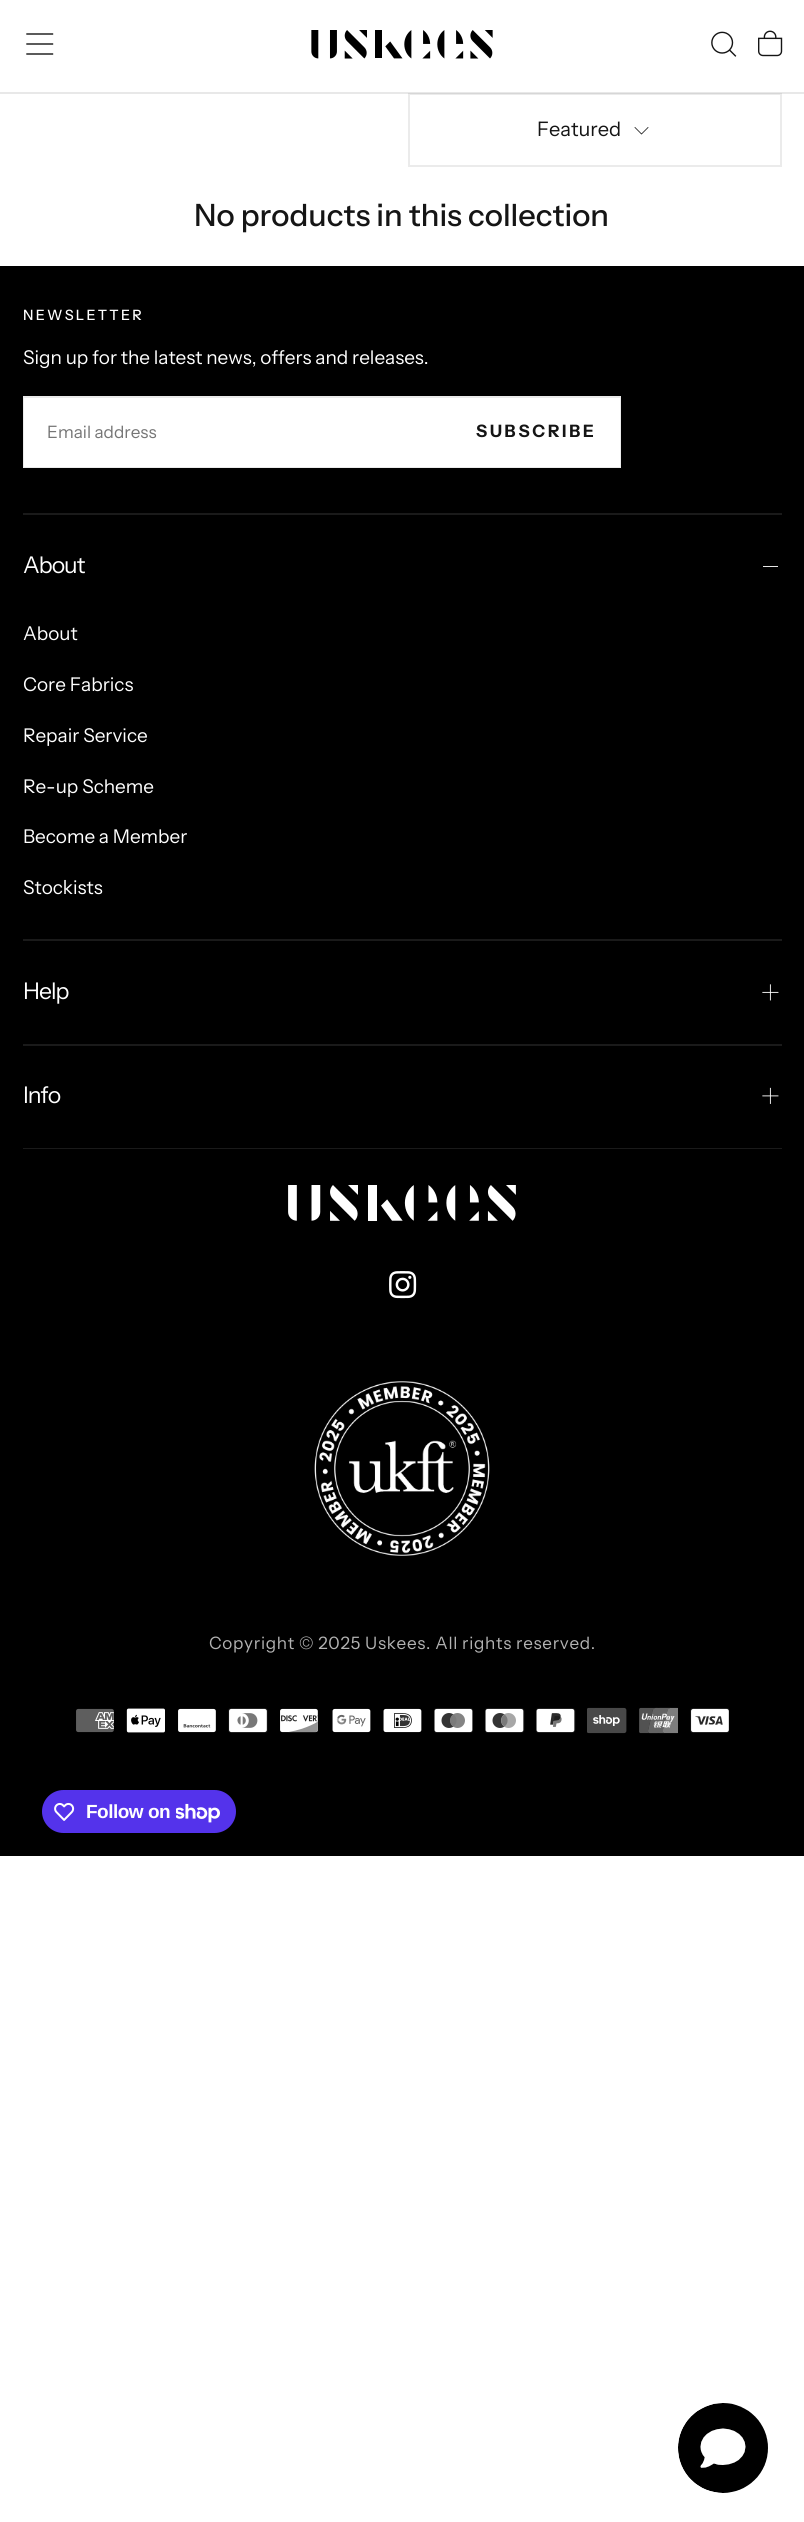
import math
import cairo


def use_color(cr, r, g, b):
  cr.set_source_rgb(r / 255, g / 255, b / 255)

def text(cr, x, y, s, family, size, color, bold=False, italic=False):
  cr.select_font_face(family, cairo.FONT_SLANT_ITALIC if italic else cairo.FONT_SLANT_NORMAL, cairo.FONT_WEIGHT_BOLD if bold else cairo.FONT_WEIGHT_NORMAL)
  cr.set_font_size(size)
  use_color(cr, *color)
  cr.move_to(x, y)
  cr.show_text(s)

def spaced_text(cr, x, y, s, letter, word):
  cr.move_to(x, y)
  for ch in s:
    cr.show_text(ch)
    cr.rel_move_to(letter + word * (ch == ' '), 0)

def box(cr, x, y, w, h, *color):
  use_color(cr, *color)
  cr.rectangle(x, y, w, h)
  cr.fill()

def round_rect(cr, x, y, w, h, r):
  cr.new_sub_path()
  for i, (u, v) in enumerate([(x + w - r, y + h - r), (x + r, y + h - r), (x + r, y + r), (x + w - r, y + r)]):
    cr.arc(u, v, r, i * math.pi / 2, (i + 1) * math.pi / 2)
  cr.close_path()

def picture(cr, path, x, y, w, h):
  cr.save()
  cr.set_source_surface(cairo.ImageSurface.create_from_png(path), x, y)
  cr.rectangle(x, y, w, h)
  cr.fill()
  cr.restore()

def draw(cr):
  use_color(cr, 255, 255, 255)
  cr.paint()
  cr.rectangle(409, 94, 372, 72)
  use_color(cr, 235, 235, 235)
  cr.stroke()
  cr.set_source_rgba(0.082, 0.082, 0.082, 0.1)
  cr.rectangle(0, 92, 804, 2)
  cr.fill()
  cr.new_path()
  cr.move_to(27, 44)
  cr.line_to(52.5, 44)
  cr.move_to(27, 34)
  cr.line_to(52.5, 34)
  cr.move_to(27, 54)
  cr.line_to(52.5, 54)
  use_color(cr, 21, 21, 21)
  cr.set_line_width(1.4)
  cr.set_line_cap(cairo.LINE_CAP_SQUARE)
  cr.stroke()
  picture(cr, "img_01.png", 311, 30, 182, 29)
  picture(cr, "img_02.png", 711, 31, 26, 26)
  picture(cr, "img_03.png", 758, 30, 25, 27)
  cr.new_path()
  cr.move_to(635, 127.5)
  cr.line_to(641.5, 134)
  cr.line_to(648, 127.5)
  cr.set_line_width(0.8)
  cr.stroke()
  box(cr, 0, 266, 804, 1590, 0, 0, 0)
  cr.rectangle(24, 397, 596, 70)
  use_color(cr, 235, 235, 235)
  cr.set_line_width(2)
  cr.set_line_cap(cairo.LINE_CAP_BUTT)
  cr.stroke()
  box(cr, 24, 398, 596, 69, 255, 255, 255)
  box(cr, 23, 513, 759, 2, 26, 26, 26)
  box(cr, 23, 939, 759, 2, 26, 26, 26)
  box(cr, 763, 566, 15, 1, 230, 230, 230)
  box(cr, 23, 1044, 759, 2, 26, 26, 26)
  picture(cr, "img_04.png", 762, 984, 17, 17)
  box(cr, 23, 1148, 759, 1, 26, 26, 26)
  picture(cr, "img_05.png", 762, 1087, 17, 17)
  picture(cr, "img_06.png", 288, 1185, 228, 36)
  picture(cr, "img_07.png", 389, 1271, 28, 28)
  picture(cr, "img_08.png", 314, 1381, 176, 175)
  picture(cr, "img_09.png", 76, 1708, 38, 25)
  picture(cr, "img_10.png", 126, 1708, 39, 25)
  picture(cr, "img_11.png", 178, 1708, 38, 25)
  picture(cr, "img_12.png", 228, 1708, 40, 25)
  picture(cr, "img_13.png", 280, 1708, 38, 25)
  picture(cr, "img_14.png", 332, 1708, 39, 25)
  picture(cr, "img_15.png", 383, 1708, 39, 25)
  picture(cr, "img_16.png", 434, 1708, 39, 25)
  picture(cr, "img_17.png", 485, 1708, 40, 25)
  picture(cr, "img_18.png", 536, 1708, 40, 25)
  picture(cr, "img_19.png", 587, 1707, 40, 27)
  picture(cr, "img_20.png", 639, 1707, 39, 27)
  picture(cr, "img_21.png", 690, 1708, 39, 25)
  use_color(cr, 84, 51, 235)
  round_rect(cr, 42, 1790, 194, 43, 21.5)
  cr.fill()
  picture(cr, "img_22.png", 54, 1802, 21, 19)
  picture(cr, "img_23.png", 176, 1803, 44, 20)
  picture(cr, "img_24.png", 678, 2403, 90, 90)
  text(cr, 537, 136, "Featured", "Instrument Sans", 20, (21, 21, 21))
  text(cr, 194, 226, "No products in this collection", "Instrument Sans Medium", 30.75, (21, 21, 21))
  cr.set_font_size(14.25)
  use_color(cr, 255, 255, 255)
  spaced_text(cr, 23, 320, "NEWSLETTER", 2.25, 0)
  text(cr, 23, 364, "Sign up for the latest news, offers and releases.", "Instrument Sans", 18.95, (255, 255, 255))
  text(cr, 47, 438, "Email address", "Instrument Sans", 17.1, (117, 117, 117))
  cr.select_font_face("Instrument Sans", cairo.FONT_SLANT_NORMAL, cairo.FONT_WEIGHT_BOLD)
  use_color(cr, 21, 21, 21)
  spaced_text(cr, 476, 437, "SUBSCRIBE", 2.75, 0)
  cr.select_font_face("Instrument Sans")
  cr.set_font_size(23)
  use_color(cr, 255, 255, 255)
  spaced_text(cr, 23, 573, "About", -1, 0)
  text(cr, 23, 640, "About", "Instrument Sans", 18.95, (255, 255, 255))
  text(cr, 23, 691, "Core Fabrics", "Instrument Sans", 18.95, (255, 255, 255))
  text(cr, 23, 742, "Repair Service", "Instrument Sans", 18.95, (255, 255, 255))
  text(cr, 23, 793, "Re-up Scheme", "Instrument Sans", 18.95, (255, 255, 255))
  text(cr, 23, 843, "Become a Member", "Instrument Sans", 18.95, (255, 255, 255))
  text(cr, 23, 894, "Stockists", "Instrument Sans", 18.95, (255, 255, 255))
  cr.set_font_size(23)
  spaced_text(cr, 23, 999, "Help", -1, 0)
  spaced_text(cr, 23, 1103, "Info", -1, 0)
  cr.set_font_size(17.1)
  use_color(cr, 179, 179, 179)
  spaced_text(cr, 209, 1649, "Copyright © 2025 Uskees. All rights reserved.", 0.7, 0)
  cr.select_font_face("Liberation Sans", cairo.FONT_SLANT_NORMAL, cairo.FONT_WEIGHT_BOLD)
  cr.set_font_size(19)
  use_color(cr, 255, 255, 255)
  spaced_text(cr, 86, 1818, "Follow on", -0.5, 0)


surface = cairo.ImageSurface(cairo.FORMAT_RGB24, 804, 2522)
cr = cairo.Context(surface)
options = cairo.FontOptions()
options.set_hint_metrics(cairo.HINT_METRICS_OFF)
options.set_hint_style(cairo.HINT_STYLE_NONE)
cr.set_font_options(options)
cr.set_miter_limit(4)
draw(cr)
surface.write_to_png("out.png")
